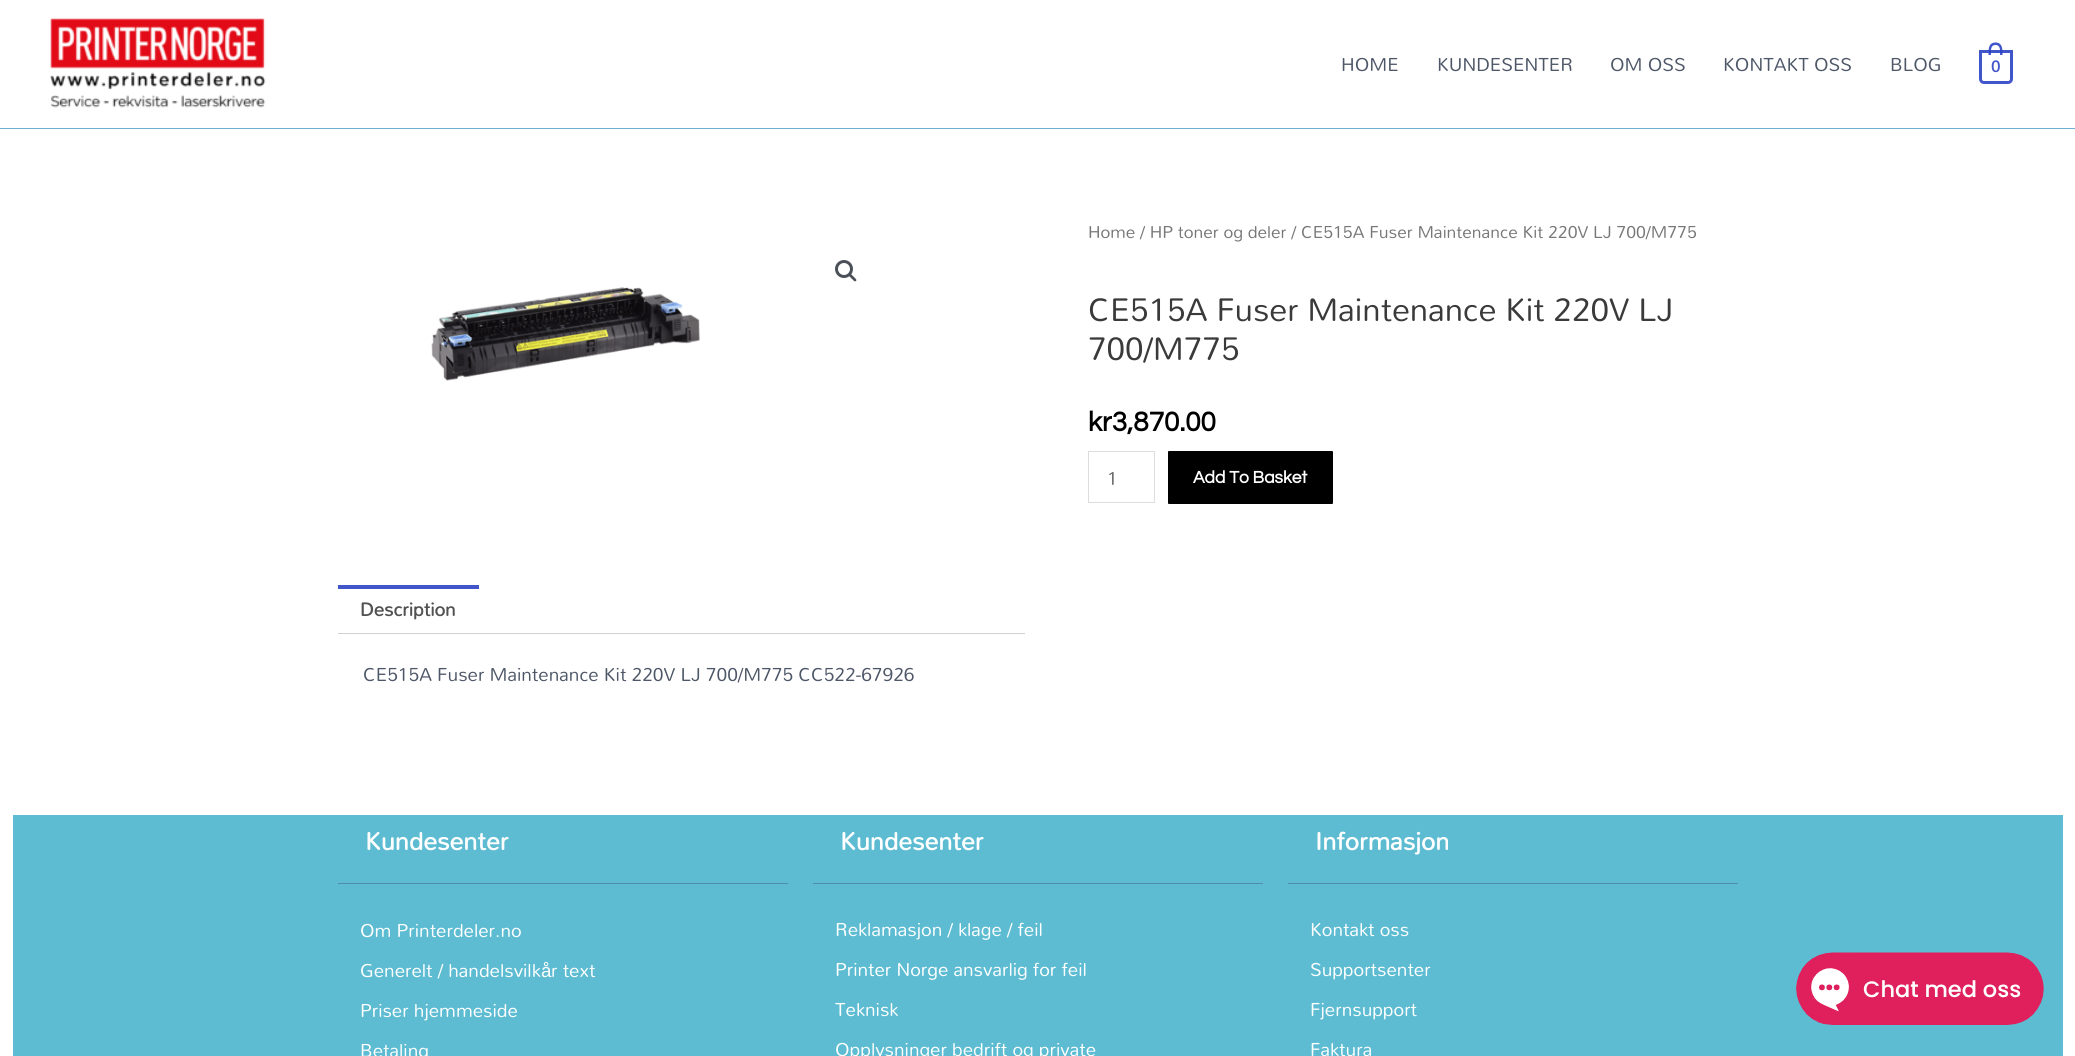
import math
import cairo


def use_color(cr, r, g, b):
  cr.set_source_rgb(r / 255, g / 255, b / 255)

def text(cr, x, y, s, family, size, color, bold=False, italic=False):
  cr.select_font_face(family, cairo.FONT_SLANT_ITALIC if italic else cairo.FONT_SLANT_NORMAL, cairo.FONT_WEIGHT_BOLD if bold else cairo.FONT_WEIGHT_NORMAL)
  cr.set_font_size(size)
  use_color(cr, *color)
  cr.move_to(x, y)
  cr.show_text(s)

def box(cr, x, y, w, h, *color):
  use_color(cr, *color)
  cr.rectangle(x, y, w, h)
  cr.fill()

def round_rect(cr, x, y, w, h, r):
  cr.new_sub_path()
  for i, (u, v) in enumerate([(x + w - r, y + h - r), (x + r, y + h - r), (x + r, y + r), (x + w - r, y + r)]):
    cr.arc(u, v, r, i * math.pi / 2, (i + 1) * math.pi / 2)
  cr.close_path()

def picture(cr, path, x, y, w, h):
  cr.save()
  cr.set_source_surface(cairo.ImageSurface.create_from_png(path), x, y)
  cr.rectangle(x, y, w, h)
  cr.fill()
  cr.restore()

def draw(cr):
  use_color(cr, 255, 255, 255)
  cr.paint()
  box(cr, 0, 128, 2075, 1, 110, 174, 209)
  picture(cr, "img_01.png", 50, 18, 216, 90)
  cr.new_path()
  cr.move_to(1980.5, 51.5)
  cr.line_to(2011.5, 51.5)
  cr.line_to(2011.5, 79)
  cr.curve_to(2011.5, 81, 2010, 82.5, 2008, 82.5)
  cr.line_to(1984, 82.5)
  cr.curve_to(1982, 82.5, 1980.5, 81, 1980.5, 79)
  cr.close_path()
  use_color(cr, 66, 86, 202)
  cr.set_line_width(3)
  cr.stroke()
  cr.set_source_rgba(0.176, 0.263, 0.769, 0.9)
  cr.set_fill_rule(cairo.FILL_RULE_EVEN_ODD)
  cr.new_path()
  cr.move_to(1995.5, 42.5)
  cr.curve_to(2003, 42.5, 2002.5, 50, 2002.5, 55)
  cr.line_to(1988.5, 55)
  cr.curve_to(1988.5, 50, 1988, 42.5, 1995.5, 42.5)
  cr.close_path()
  cr.move_to(1995.5, 45)
  cr.curve_to(2001, 45, 2000, 51.5, 2000, 55)
  cr.line_to(1991, 55)
  cr.curve_to(1991, 51.5, 1990, 45, 1995.5, 45)
  cr.close_path()
  cr.fill()
  cr.arc(844, 269, 7.5, 0, 2 * math.pi)
  use_color(cr, 75, 79, 88)
  cr.stroke()
  cr.set_fill_rule(cairo.FILL_RULE_WINDING)
  cr.new_path()
  cr.move_to(849, 274)
  cr.curve_to(850.5, 272.5, 852.5, 276, 853.5, 276.5)
  cr.curve_to(854, 277.5, 857.5, 279.5, 856, 281)
  cr.curve_to(854.5, 282.5, 852.5, 279, 851.5, 278.5)
  cr.curve_to(851, 277.5, 847.5, 275.5, 849, 274)
  cr.close_path()
  cr.fill()
  picture(cr, "img_02.png", 431, 287, 269, 94)
  cr.rectangle(1088.5, 451.5, 66, 51)
  use_color(cr, 221, 221, 221)
  cr.set_line_width(1)
  cr.stroke()
  use_color(cr, 0, 0, 0)
  round_rect(cr, 1168, 451, 165, 53, 1)
  cr.fill()
  box(cr, 338, 585, 141, 4, 66, 86, 202)
  box(cr, 338, 633, 687, 1, 211, 206, 210)
  box(cr, 13, 815, 2050, 241, 93, 188, 210)
  box(cr, 338, 883, 450, 1, 78, 141, 177)
  box(cr, 813, 883, 450, 1, 78, 141, 177)
  box(cr, 1288, 883, 450, 1, 78, 141, 177)
  picture(cr, "img_03.png", 1796, 952, 248, 73)
  text(cr, 1341, 71, "HOME", "Mandali", 18.75, (78, 87, 104))
  text(cr, 1437, 71, "KUNDESENTER", "Mandali", 18.75, (78, 87, 104))
  text(cr, 1610, 71, "OM OSS", "Mandali", 18.75, (78, 87, 104))
  text(cr, 1723, 71, "KONTAKT OSS", "Mandali", 18.75, (78, 87, 104))
  text(cr, 1890, 71, "BLOG", "Mandali", 18.75, (78, 87, 104))
  text(cr, 1991, 72, "0", "Mandali", 16, (66, 86, 202), bold=True)
  text(cr, 1088, 238, "Home / HP toner og deler / CE515A Fuser Maintenance Kit 220V LJ 700/M775", "Mandali", 17.25, (119, 119, 119))
  text(cr, 1088, 321, "CE515A Fuser Maintenance Kit 220V LJ", "Mandali", 32.5, (58, 58, 58))
  text(cr, 1088, 360, "700/M775", "Mandali", 32.5, (58, 58, 58))
  text(cr, 1088, 431, "kr3,870.00", "Questrial", 28, (0, 0, 0), bold=True)
  text(cr, 1107, 485, "1", "Mandali", 18.75, (102, 102, 102))
  text(cr, 1193, 483, "Add To Basket", "Questrial", 17.5, (255, 255, 255), bold=True)
  text(cr, 360, 616, "Description", "Mandali", 18.75, (81, 81, 81), bold=True)
  text(cr, 363, 681, "CE515A Fuser Maintenance Kit 220V LJ 700/M775 CC522-67926", "Mandali", 18.75, (78, 87, 104))
  text(cr, 365, 850, "Kundesenter", "Mandali", 25, (255, 255, 255), bold=True)
  text(cr, 360, 937, "Om Printerdeler.no", "Mandali", 18.75, (255, 255, 255))
  text(cr, 360, 977, "Generelt / handelsvilk", "Mandali", 18.75, (255, 255, 255))
  text(cr, 541, 977, "å", "Liberation Sans", 18.75, (255, 255, 255))
  text(cr, 551, 977, "r text", "Mandali", 18.75, (255, 255, 255))
  text(cr, 360, 1017, "Priser hjemmeside", "Mandali", 18.75, (255, 255, 255))
  text(cr, 360, 1057, "Betaling", "Mandali", 18.75, (255, 255, 255))
  text(cr, 840, 850, "Kundesenter", "Mandali", 25, (255, 255, 255), bold=True)
  text(cr, 835, 936, "Reklamasjon / klage / feil", "Mandali", 18.75, (255, 255, 255))
  text(cr, 835, 976, "Printer Norge ansvarlig for feil", "Mandali", 18.75, (255, 255, 255))
  text(cr, 835, 1016, "Teknisk", "Mandali", 18.75, (255, 255, 255))
  text(cr, 835, 1056, "Opplysninger bedrift og private", "Mandali", 18.75, (255, 255, 255))
  text(cr, 1315, 850, "Informasjon", "Mandali", 25, (255, 255, 255), bold=True)
  text(cr, 1310, 936, "Kontakt oss", "Mandali", 18.75, (255, 255, 255))
  text(cr, 1310, 976, "Supportsenter", "Mandali", 18.75, (255, 255, 255))
  text(cr, 1310, 1016, "Fjernsupport", "Mandali", 18.75, (255, 255, 255))
  text(cr, 1310, 1056, "Faktura", "Mandali", 18.75, (255, 255, 255))


surface = cairo.ImageSurface(cairo.FORMAT_RGB24, 2075, 1056)
cr = cairo.Context(surface)
options = cairo.FontOptions()
options.set_hint_metrics(cairo.HINT_METRICS_OFF)
options.set_hint_style(cairo.HINT_STYLE_NONE)
cr.set_font_options(options)
cr.set_miter_limit(4)
draw(cr)
surface.write_to_png("out.png")
